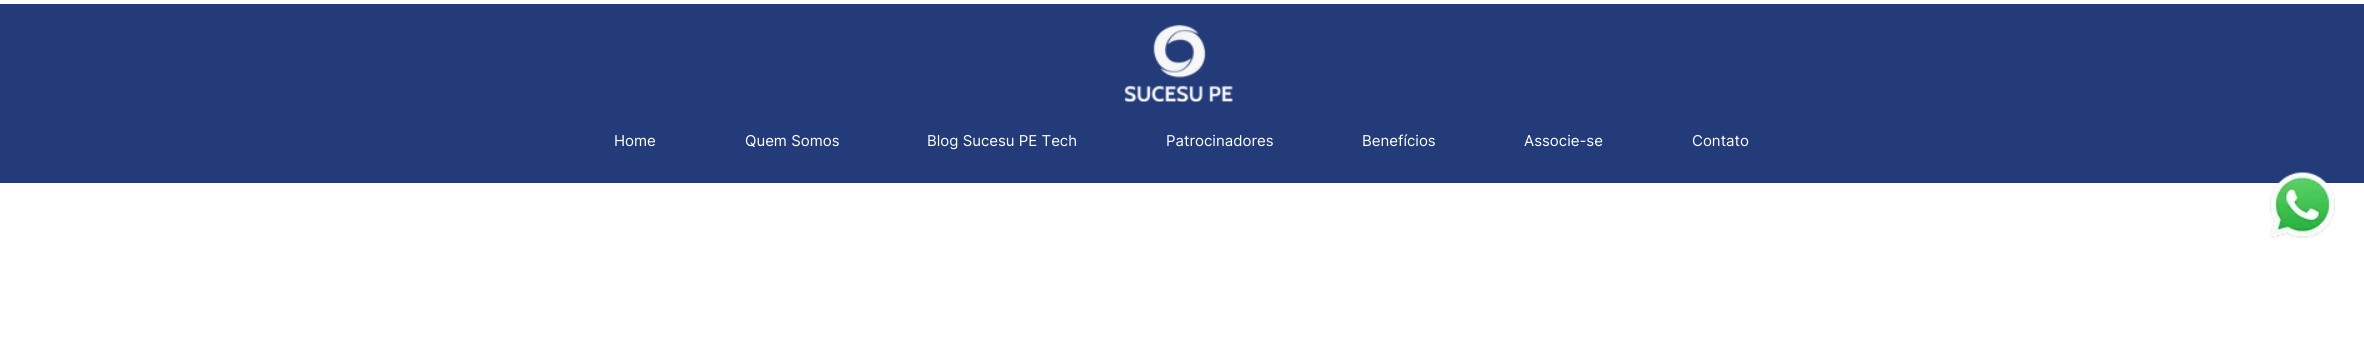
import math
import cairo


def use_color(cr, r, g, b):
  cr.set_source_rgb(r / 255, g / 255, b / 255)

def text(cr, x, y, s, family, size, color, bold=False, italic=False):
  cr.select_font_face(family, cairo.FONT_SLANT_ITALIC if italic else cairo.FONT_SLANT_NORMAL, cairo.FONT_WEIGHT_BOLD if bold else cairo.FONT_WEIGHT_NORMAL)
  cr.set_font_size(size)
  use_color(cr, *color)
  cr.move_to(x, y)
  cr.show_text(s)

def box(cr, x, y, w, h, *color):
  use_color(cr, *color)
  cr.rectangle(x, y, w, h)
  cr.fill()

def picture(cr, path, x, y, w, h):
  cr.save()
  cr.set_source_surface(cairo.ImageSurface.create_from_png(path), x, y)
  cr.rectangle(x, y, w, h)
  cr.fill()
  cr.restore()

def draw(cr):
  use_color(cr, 255, 255, 255)
  cr.paint()
  box(cr, 0, 4, 2364, 179, 36, 59, 122)
  picture(cr, "img_01.png", 1124, 24, 109, 78)
  picture(cr, "img_02.png", 2269, 171, 66, 68)
  text(cr, 614, 146, "Home", "Inter", 15, (255, 255, 255))
  text(cr, 745, 146, "Quem Somos", "Inter", 15, (255, 255, 255))
  text(cr, 927, 146, "Blog Sucesu PE Tech", "Inter", 15, (255, 255, 255))
  text(cr, 1166, 146, "Patrocinadores", "Inter", 15, (255, 255, 255))
  text(cr, 1362, 146, "Benefícios", "Inter", 15, (255, 255, 255))
  text(cr, 1524, 146, "Associe-se", "Inter", 15, (255, 255, 255))
  text(cr, 1692, 146, "Contato", "Inter", 15, (255, 255, 255))


surface = cairo.ImageSurface(cairo.FORMAT_RGB24, 2364, 354)
cr = cairo.Context(surface)
options = cairo.FontOptions()
options.set_hint_metrics(cairo.HINT_METRICS_OFF)
options.set_hint_style(cairo.HINT_STYLE_NONE)
cr.set_font_options(options)
cr.set_miter_limit(4)
draw(cr)
surface.write_to_png("out.png")
